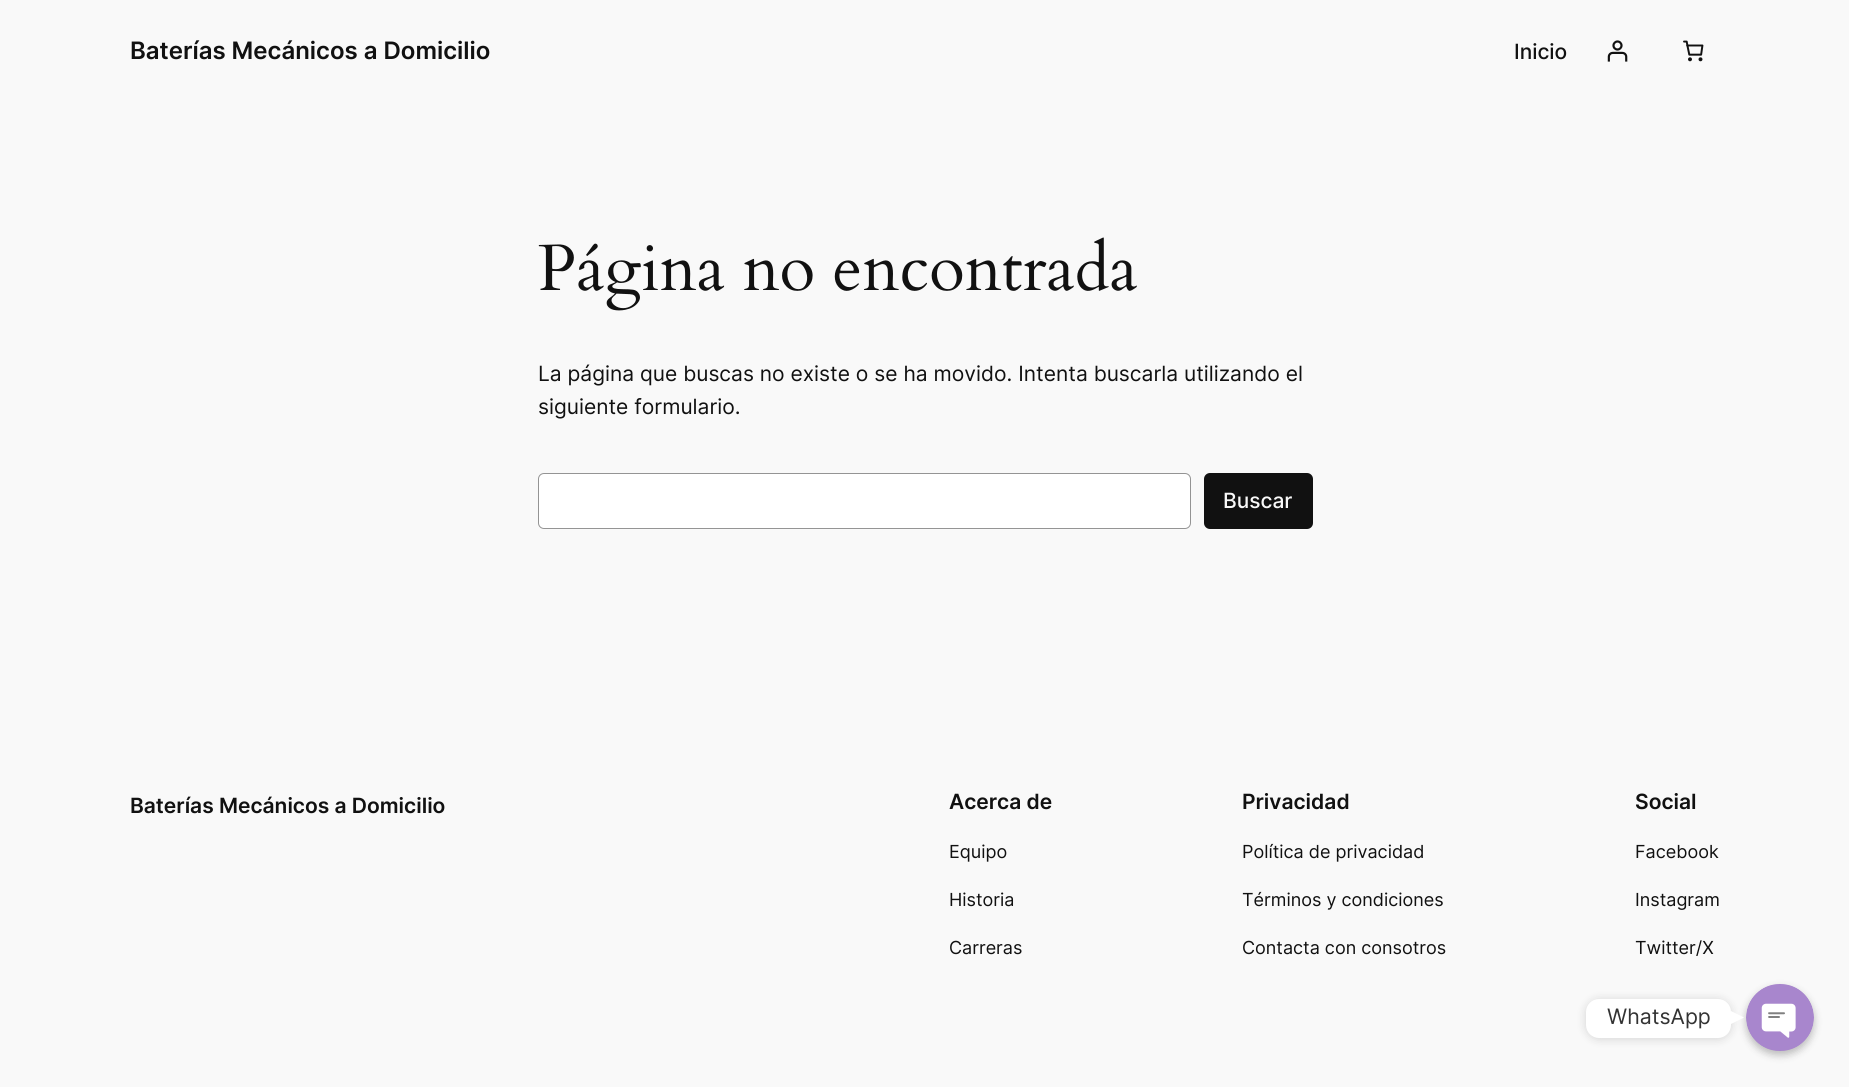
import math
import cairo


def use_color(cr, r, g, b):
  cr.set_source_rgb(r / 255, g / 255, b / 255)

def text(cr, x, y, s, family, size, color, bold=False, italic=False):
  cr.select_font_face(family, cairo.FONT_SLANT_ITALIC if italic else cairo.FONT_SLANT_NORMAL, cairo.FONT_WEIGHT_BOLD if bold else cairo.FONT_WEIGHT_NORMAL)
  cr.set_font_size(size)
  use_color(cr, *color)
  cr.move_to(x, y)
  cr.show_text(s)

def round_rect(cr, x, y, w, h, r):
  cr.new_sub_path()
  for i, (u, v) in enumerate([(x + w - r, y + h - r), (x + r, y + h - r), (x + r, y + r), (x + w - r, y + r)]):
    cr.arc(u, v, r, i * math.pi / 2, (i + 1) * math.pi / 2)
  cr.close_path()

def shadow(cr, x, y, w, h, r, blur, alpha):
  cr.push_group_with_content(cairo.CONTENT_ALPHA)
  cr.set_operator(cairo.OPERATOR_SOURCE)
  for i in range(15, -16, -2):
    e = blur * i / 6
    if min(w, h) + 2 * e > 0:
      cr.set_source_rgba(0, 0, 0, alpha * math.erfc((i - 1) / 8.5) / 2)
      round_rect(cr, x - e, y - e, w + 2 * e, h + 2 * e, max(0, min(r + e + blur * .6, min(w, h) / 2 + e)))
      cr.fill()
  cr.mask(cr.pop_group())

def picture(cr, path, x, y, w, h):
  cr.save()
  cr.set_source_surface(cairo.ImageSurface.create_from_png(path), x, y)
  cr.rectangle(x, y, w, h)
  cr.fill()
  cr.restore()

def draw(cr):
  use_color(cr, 249, 249, 249)
  cr.paint()
  picture(cr, "img_01.png", 1607, 40, 21, 22)
  picture(cr, "img_02.png", 1683, 40, 21, 22)
  picture(cr, "img_03.png", 538, 237, 599, 74)
  use_color(cr, 255, 255, 255)
  round_rect(cr, 538.5, 473.5, 652, 55, 5.5)
  cr.fill_preserve()
  use_color(cr, 148, 148, 148)
  cr.set_line_width(1)
  cr.stroke()
  use_color(cr, 17, 17, 17)
  round_rect(cr, 1204, 473, 109, 56, 6)
  cr.fill()
  use_color(cr, 0, 0, 0)
  shadow(cr, 1746, 988, 68, 67, 33.5, 4, 0.25)
  picture(cr, "img_04.png", 1746, 984, 68, 67)
  shadow(cr, 1586, 1000, 145, 39, 13, 5, 0.15)
  use_color(cr, 255, 255, 255)
  round_rect(cr, 1586, 999, 145, 39, 13)
  cr.fill()
  cr.new_path()
  cr.move_to(1731, 1024)
  cr.line_to(1731, 1011)
  cr.line_to(1744, 1017.5)
  cr.close_path()
  cr.fill()
  text(cr, 130, 59, "Baterías Mecánicos a Domicilio", "Inter SemiBold", 24, (17, 17, 17))
  text(cr, 1514, 59, "Inicio", "Inter Medium", 21, (17, 17, 17))
  text(cr, 538, 381, "La página que buscas no existe o se ha movido. Intenta buscarla utilizando el", "Inter", 21, (17, 17, 17))
  text(cr, 538, 414, "siguiente formulario.", "Inter", 21, (17, 17, 17))
  text(cr, 1223, 508, "Buscar", "Inter Medium", 21, (249, 249, 249))
  text(cr, 130, 813, "Baterías Mecánicos a Domicilio", "Inter SemiBold", 21, (17, 17, 17))
  text(cr, 949, 809, "Acerca de", "Inter SemiBold", 21, (17, 17, 17))
  text(cr, 949, 858, "Equipo", "Inter", 18, (17, 17, 17))
  text(cr, 949, 906, "Historia", "Inter", 18, (17, 17, 17))
  text(cr, 949, 954, "Carreras", "Inter", 18, (17, 17, 17))
  text(cr, 1242, 809, "Privacidad", "Inter SemiBold", 21, (17, 17, 17))
  text(cr, 1242, 858, "Política de privacidad", "Inter", 18, (17, 17, 17))
  text(cr, 1242, 906, "Términos y condiciones", "Inter", 18, (17, 17, 17))
  text(cr, 1242, 954, "Contacta con consotros", "Inter", 18, (17, 17, 17))
  text(cr, 1635, 809, "Social", "Inter SemiBold", 21, (17, 17, 17))
  text(cr, 1635, 858, "Facebook", "Inter", 18, (17, 17, 17))
  text(cr, 1635, 906, "Instagram", "Inter", 18, (17, 17, 17))
  text(cr, 1635, 954, "Twitter/X", "Inter", 18, (17, 17, 17))
  text(cr, 1607, 1024, "WhatsApp", "Inter", 21.25, (51, 51, 51))


surface = cairo.ImageSurface(cairo.FORMAT_RGB24, 1849, 1087)
cr = cairo.Context(surface)
options = cairo.FontOptions()
options.set_hint_metrics(cairo.HINT_METRICS_OFF)
options.set_hint_style(cairo.HINT_STYLE_NONE)
cr.set_font_options(options)
cr.set_miter_limit(4)
draw(cr)
surface.write_to_png("out.png")
